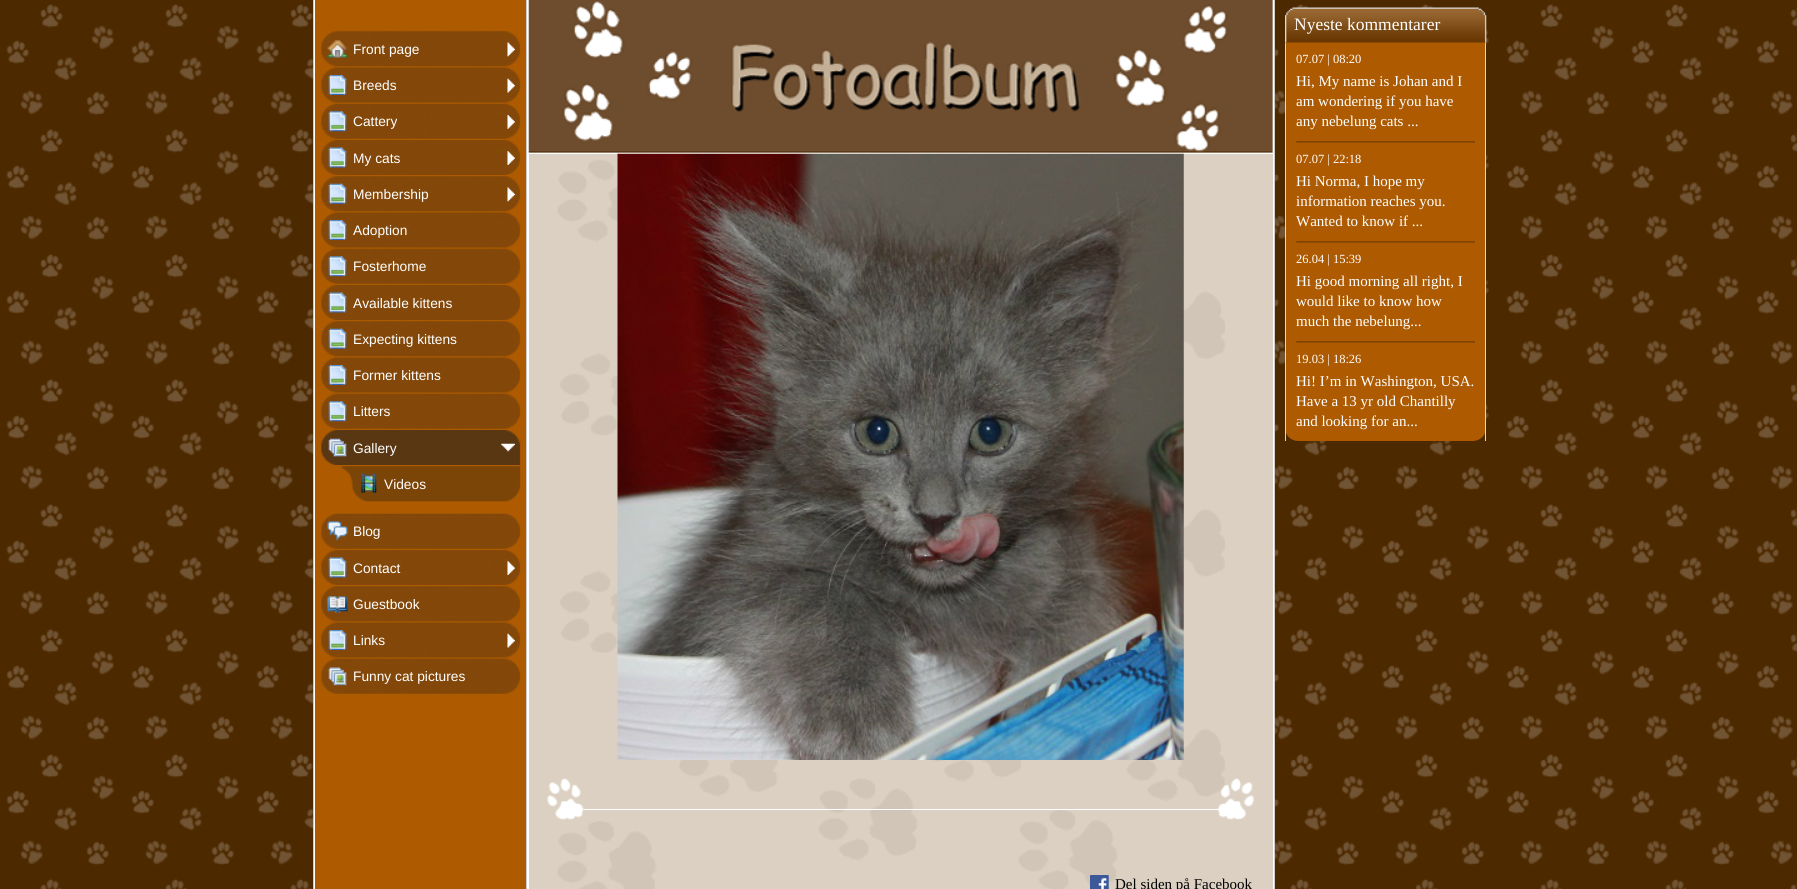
import math
import cairo


def use_color(cr, r, g, b):
  cr.set_source_rgb(r / 255, g / 255, b / 255)

def text(cr, x, y, s, family, size, color, bold=False, italic=False):
  cr.select_font_face(family, cairo.FONT_SLANT_ITALIC if italic else cairo.FONT_SLANT_NORMAL, cairo.FONT_WEIGHT_BOLD if bold else cairo.FONT_WEIGHT_NORMAL)
  cr.set_font_size(size)
  use_color(cr, *color)
  cr.move_to(x, y)
  cr.show_text(s)

def box(cr, x, y, w, h, *color):
  use_color(cr, *color)
  cr.rectangle(x, y, w, h)
  cr.fill()

def round_rect(cr, x, y, w, h, r):
  cr.new_sub_path()
  for i, (u, v) in enumerate([(x + w - r, y + h - r), (x + r, y + h - r), (x + r, y + r), (x + w - r, y + r)]):
    cr.arc(u, v, r, i * math.pi / 2, (i + 1) * math.pi / 2)
  cr.close_path()

def picture(cr, path, x, y, w, h):
  cr.save()
  cr.set_source_surface(cairo.ImageSurface.create_from_png(path), x, y)
  cr.rectangle(x, y, w, h)
  cr.fill()
  cr.restore()

def draw(cr):
  use_color(cr, 77, 41, 0)
  cr.paint()
  picture(cr, "img_01.png", 6, 4, 1791, 885)
  box(cr, 314, 0, 960, 889, 255, 255, 255)
  box(cr, 313, 0, 1, 889, 204, 204, 204)
  box(cr, 315, 0, 211, 889, 173, 90, 0)
  picture(cr, "img_02.png", 321, 31, 200, 36)
  picture(cr, "img_03.png", 327, 40, 21, 18)
  picture(cr, "img_04.png", 507, 42, 8, 15)
  picture(cr, "img_05.png", 321, 67, 200, 36)
  picture(cr, "img_06.png", 328, 75, 19, 20)
  picture(cr, "img_07.png", 507, 78, 8, 15)
  picture(cr, "img_08.png", 321, 103, 200, 36)
  picture(cr, "img_09.png", 328, 111, 19, 21)
  picture(cr, "img_10.png", 507, 115, 8, 14)
  picture(cr, "img_11.png", 321, 140, 200, 35)
  picture(cr, "img_12.png", 328, 147, 19, 21)
  picture(cr, "img_13.png", 507, 151, 8, 14)
  picture(cr, "img_02.png", 321, 176, 200, 36)
  picture(cr, "img_14.png", 328, 183, 19, 21)
  picture(cr, "img_04.png", 507, 187, 8, 15)
  picture(cr, "img_05.png", 321, 212, 200, 36)
  picture(cr, "img_06.png", 328, 220, 19, 20)
  picture(cr, "img_08.png", 321, 248, 200, 36)
  picture(cr, "img_15.png", 328, 256, 19, 21)
  picture(cr, "img_16.png", 321, 285, 200, 35)
  picture(cr, "img_17.png", 328, 292, 19, 21)
  picture(cr, "img_02.png", 321, 321, 200, 36)
  picture(cr, "img_14.png", 328, 328, 19, 21)
  picture(cr, "img_05.png", 321, 357, 200, 36)
  picture(cr, "img_06.png", 328, 365, 19, 20)
  picture(cr, "img_08.png", 321, 393, 200, 36)
  picture(cr, "img_09.png", 328, 401, 19, 21)
  picture(cr, "img_18.png", 321, 430, 200, 35)
  picture(cr, "img_19.png", 328, 438, 19, 19)
  picture(cr, "img_20.png", 501, 443, 14, 9)
  picture(cr, "img_21.png", 341, 466, 180, 36)
  picture(cr, "img_22.png", 361, 473, 16, 20)
  picture(cr, "img_08.png", 321, 513, 200, 36)
  picture(cr, "img_23.png", 327, 521, 21, 20)
  picture(cr, "img_11.png", 321, 550, 200, 35)
  picture(cr, "img_12.png", 328, 557, 19, 21)
  picture(cr, "img_13.png", 507, 561, 8, 14)
  picture(cr, "img_24.png", 321, 586, 200, 36)
  picture(cr, "img_25.png", 327, 596, 21, 17)
  picture(cr, "img_05.png", 321, 622, 200, 36)
  picture(cr, "img_06.png", 328, 630, 19, 20)
  picture(cr, "img_07.png", 507, 633, 8, 15)
  picture(cr, "img_08.png", 321, 658, 200, 36)
  picture(cr, "img_26.png", 328, 667, 19, 19)
  box(cr, 526, 0, 1, 889, 204, 204, 204)
  box(cr, 1274, 0, 1, 889, 204, 204, 204)
  box(cr, 529, 0, 744, 889, 219, 208, 193)
  picture(cr, "img_27.png", 557, 152, 668, 737)
  picture(cr, "img_28.png", 528, 0, 745, 153)
  box(cr, 529, 153, 744, 1, 255, 255, 255)
  picture(cr, "img_29.png", 617, 153, 567, 607)
  picture(cr, "img_30.png", 547, 778, 37, 42)
  picture(cr, "img_31.png", 1217, 778, 37, 42)
  box(cr, 584, 809, 634, 1, 255, 255, 255)
  picture(cr, "img_32.png", 1090, 875, 19, 14)
  use_color(cr, 173, 90, 0)
  round_rect(cr, 1285, 8, 201, 433, 13)
  cr.fill()
  picture(cr, "img_33.png", 1285, 7, 202, 36)
  box(cr, 1485, 43, 1, 398, 218, 218, 218)
  box(cr, 1285, 43, 1, 398, 218, 218, 218)
  picture(cr, "img_34.png", 1296, 141, 179, 2)
  picture(cr, "img_34.png", 1296, 241, 179, 2)
  picture(cr, "img_34.png", 1296, 341, 179, 2)
  text(cr, 353, 54, "Front page", "Liberation Sans", 13.75, (255, 255, 255))
  text(cr, 353, 90, "Breeds", "Liberation Sans", 13.75, (255, 255, 255))
  text(cr, 353, 126, "Cattery", "Liberation Sans", 13.75, (255, 255, 255))
  text(cr, 353, 163, "My cats", "Liberation Sans", 13.75, (255, 255, 255))
  text(cr, 353, 199, "Membership", "Liberation Sans", 13.75, (255, 255, 255))
  text(cr, 353, 235, "Adoption", "Liberation Sans", 13.75, (255, 255, 255))
  text(cr, 353, 271, "Fosterhome", "Liberation Sans", 13.75, (255, 255, 255))
  text(cr, 353, 308, "Available kittens", "Liberation Sans", 13.75, (255, 255, 255))
  text(cr, 353, 344, "Expecting kittens", "Liberation Sans", 13.75, (255, 255, 255))
  text(cr, 353, 380, "Former kittens", "Liberation Sans", 13.75, (255, 255, 255))
  text(cr, 353, 416, "Litters", "Liberation Sans", 13.75, (255, 255, 255))
  text(cr, 353, 453, "Gallery", "Liberation Sans", 13.75, (255, 255, 255))
  text(cr, 384, 489, "Videos", "Liberation Sans", 13.75, (255, 255, 255))
  text(cr, 353, 536, "Blog", "Liberation Sans", 13.75, (255, 255, 255))
  text(cr, 353, 573, "Contact", "Liberation Sans", 13.75, (255, 255, 255))
  text(cr, 353, 609, "Guestbook", "Liberation Sans", 13.75, (255, 255, 255))
  text(cr, 353, 645, "Links", "Liberation Sans", 13.75, (255, 255, 255))
  text(cr, 353, 681, "Funny cat pictures", "Liberation Sans", 13.75, (255, 255, 255))
  text(cr, 1115, 889, "Del siden på Facebook", "Liberation Serif", 15, (0, 0, 0))
  text(cr, 1294, 30, "Nyeste kommentarer", "Liberation Serif", 17.5, (255, 255, 255))
  text(cr, 1296, 63, "07.07 | 08:20", "Liberation Serif", 12.5, (255, 255, 255))
  text(cr, 1296, 86, "Hi, My name is Johan and I", "Liberation Serif", 15, (255, 255, 255))
  text(cr, 1296, 106, "am wondering if you have", "Liberation Serif", 15, (255, 255, 255))
  text(cr, 1296, 126, "any nebelung cats ...", "Liberation Serif", 15, (255, 255, 255))
  text(cr, 1296, 163, "07.07 | 22:18", "Liberation Serif", 12.5, (255, 255, 255))
  text(cr, 1296, 186, "Hi Norma, I hope my", "Liberation Serif", 15, (255, 255, 255))
  text(cr, 1296, 206, "information reaches you.", "Liberation Serif", 15, (255, 255, 255))
  text(cr, 1296, 226, "Wanted to know if ...", "Liberation Serif", 15, (255, 255, 255))
  text(cr, 1296, 263, "26.04 | 15:39", "Liberation Serif", 12.5, (255, 255, 255))
  text(cr, 1296, 286, "Hi good morning all right, I", "Liberation Serif", 15, (255, 255, 255))
  text(cr, 1296, 306, "would like to know how", "Liberation Serif", 15, (255, 255, 255))
  text(cr, 1296, 326, "much the nebelung...", "Liberation Serif", 15, (255, 255, 255))
  text(cr, 1296, 363, "19.03 | 18:26", "Liberation Serif", 12.5, (255, 255, 255))
  text(cr, 1296, 386, "Hi! I’m in Washington, USA.", "Liberation Serif", 15, (255, 255, 255))
  text(cr, 1296, 406, "Have a 13 yr old Chantilly", "Liberation Serif", 15, (255, 255, 255))
  text(cr, 1296, 426, "and looking for an...", "Liberation Serif", 15, (255, 255, 255))


surface = cairo.ImageSurface(cairo.FORMAT_RGB24, 1797, 889)
cr = cairo.Context(surface)
options = cairo.FontOptions()
options.set_hint_metrics(cairo.HINT_METRICS_OFF)
options.set_hint_style(cairo.HINT_STYLE_NONE)
cr.set_font_options(options)
cr.set_miter_limit(4)
draw(cr)
surface.write_to_png("out.png")
